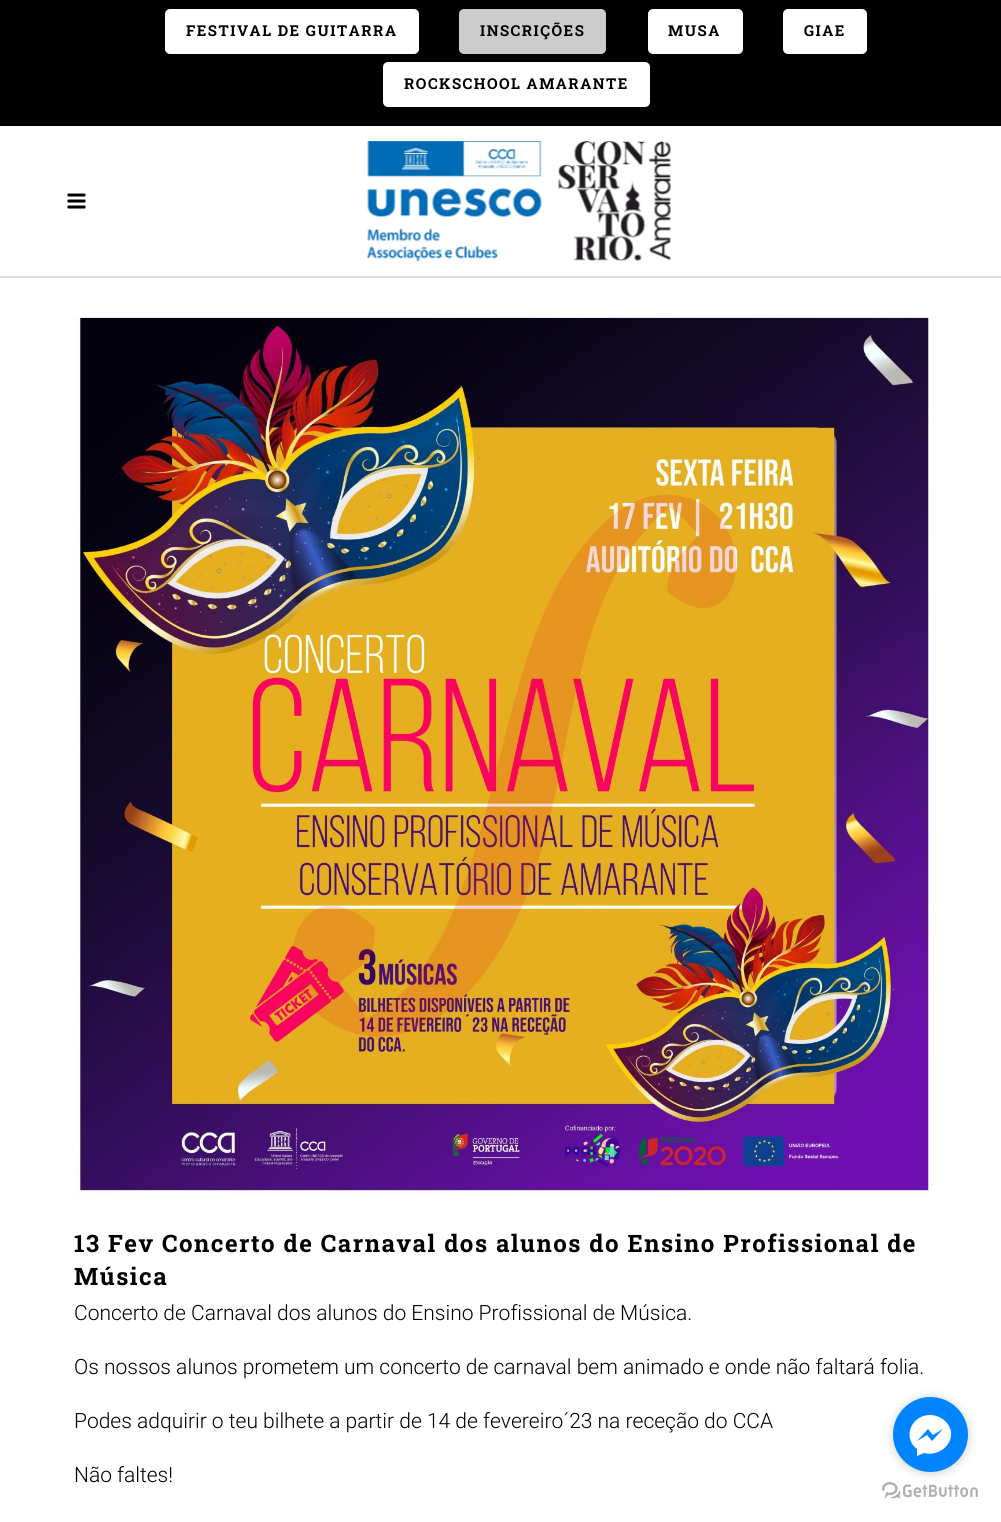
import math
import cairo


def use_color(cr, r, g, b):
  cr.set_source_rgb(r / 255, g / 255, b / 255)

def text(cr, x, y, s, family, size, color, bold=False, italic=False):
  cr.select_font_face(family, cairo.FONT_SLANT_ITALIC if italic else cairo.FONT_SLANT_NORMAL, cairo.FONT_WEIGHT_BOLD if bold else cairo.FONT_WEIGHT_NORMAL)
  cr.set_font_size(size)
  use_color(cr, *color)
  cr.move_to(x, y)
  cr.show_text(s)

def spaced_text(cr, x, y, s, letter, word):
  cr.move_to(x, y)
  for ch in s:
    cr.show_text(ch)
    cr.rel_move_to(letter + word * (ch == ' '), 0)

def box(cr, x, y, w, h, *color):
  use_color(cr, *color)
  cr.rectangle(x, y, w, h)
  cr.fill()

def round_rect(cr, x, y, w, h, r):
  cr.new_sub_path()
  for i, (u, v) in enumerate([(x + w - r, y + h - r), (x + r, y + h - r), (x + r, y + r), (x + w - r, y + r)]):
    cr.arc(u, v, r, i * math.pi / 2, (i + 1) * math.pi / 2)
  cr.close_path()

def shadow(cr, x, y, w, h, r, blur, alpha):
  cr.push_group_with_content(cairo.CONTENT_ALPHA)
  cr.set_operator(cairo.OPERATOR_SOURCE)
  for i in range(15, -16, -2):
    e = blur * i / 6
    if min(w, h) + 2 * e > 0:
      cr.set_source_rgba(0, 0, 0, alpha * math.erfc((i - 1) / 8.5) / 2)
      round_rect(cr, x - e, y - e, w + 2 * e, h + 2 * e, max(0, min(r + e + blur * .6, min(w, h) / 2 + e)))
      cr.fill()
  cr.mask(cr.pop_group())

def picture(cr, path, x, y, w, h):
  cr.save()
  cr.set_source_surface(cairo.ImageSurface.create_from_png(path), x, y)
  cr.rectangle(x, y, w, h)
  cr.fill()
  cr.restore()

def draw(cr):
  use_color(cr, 255, 255, 255)
  cr.paint()
  box(cr, 0, 0, 1001, 126, 0, 0, 0)
  use_color(cr, 255, 255, 255)
  round_rect(cr, 163.5, 7.5, 257, 48, 6.5)
  cr.fill_preserve()
  use_color(cr, 0, 0, 0)
  cr.set_line_width(3)
  cr.stroke()
  use_color(cr, 204, 204, 204)
  round_rect(cr, 457.5, 7.5, 150, 48, 6.5)
  cr.fill_preserve()
  use_color(cr, 0, 0, 0)
  cr.stroke()
  use_color(cr, 255, 255, 255)
  round_rect(cr, 646.5, 7.5, 98, 48, 6.5)
  cr.fill_preserve()
  use_color(cr, 0, 0, 0)
  cr.stroke()
  use_color(cr, 255, 255, 255)
  round_rect(cr, 781.5, 7.5, 87, 48, 6.5)
  cr.fill_preserve()
  use_color(cr, 0, 0, 0)
  cr.stroke()
  use_color(cr, 255, 255, 255)
  round_rect(cr, 381.5, 60.5, 270, 48, 6.5)
  cr.fill_preserve()
  use_color(cr, 0, 0, 0)
  cr.stroke()
  box(cr, 0, 276, 1001, 2, 221, 221, 221)
  picture(cr, "img_01.png", 67, 193, 19, 16)
  picture(cr, "img_02.png", 366, 141, 305, 120)
  picture(cr, "img_03.png", 74, 317, 855, 879)
  picture(cr, "img_04.png", 882, 1482, 96, 17)
  use_color(cr, 136, 136, 136)
  shadow(cr, 893, 1398, 75, 75, 37.5, 5, 0.4)
  use_color(cr, 0, 132, 255)
  cr.arc(930.5, 1434.5, 37.5, 0, 2 * math.pi)
  cr.fill()
  use_color(cr, 255, 255, 255)
  cr.new_path()
  cr.move_to(930, 1415)
  cr.curve_to(911, 1415, 902, 1438, 917, 1449)
  cr.line_to(917, 1456)
  cr.line_to(924, 1453)
  cr.curve_to(943, 1458, 961, 1436, 945, 1421)
  cr.curve_to(941, 1417, 935, 1415, 930, 1415)
  cr.close_path()
  cr.move_to(932, 1441)
  cr.line_to(927, 1435)
  cr.line_to(917, 1441)
  cr.line_to(928, 1429)
  cr.line_to(933, 1435)
  cr.line_to(943, 1429)
  cr.close_path()
  cr.fill()
  cr.select_font_face("Roboto Slab", cairo.FONT_SLANT_NORMAL, cairo.FONT_WEIGHT_BOLD)
  cr.set_font_size(15)
  use_color(cr, 0, 0, 0)
  spaced_text(cr, 186, 36, "FESTIVAL DE GUITARRA", 1.5, 0)
  spaced_text(cr, 480, 36, "INSCRIÇÕES", 1.5, 0)
  spaced_text(cr, 668, 36, "MUSA", 1.5, 0)
  spaced_text(cr, 804, 36, "GIAE", 1.5, 0)
  spaced_text(cr, 404, 89, "ROCKSCHOOL AMARANTE", 1.5, 0)
  cr.set_font_size(24)
  spaced_text(cr, 74, 1252, "13 Fev Concerto de Carnaval dos alunos do Ensino Profissional de", 1.5, 0)
  spaced_text(cr, 74, 1285, "Música", 1.5, 0)
  text(cr, 74, 1320, "Concerto de Carnaval dos alunos do Ensino Profissional de Música.", "Roboto Light", 21, (0, 0, 0))
  text(cr, 74, 1374, "Os nossos alunos prometem um concerto de carnaval bem animado e onde não faltará folia.", "Roboto Light", 21, (0, 0, 0))
  text(cr, 74, 1428, "Podes adquirir o teu bilhete a partir de 14 de fevereiro´23 na receção do CCA", "Roboto Light", 21, (0, 0, 0))
  text(cr, 74, 1482, "Não faltes!", "Roboto Light", 21, (0, 0, 0))


surface = cairo.ImageSurface(cairo.FORMAT_RGB24, 1001, 1522)
cr = cairo.Context(surface)
options = cairo.FontOptions()
options.set_hint_metrics(cairo.HINT_METRICS_OFF)
options.set_hint_style(cairo.HINT_STYLE_NONE)
cr.set_font_options(options)
cr.set_miter_limit(4)
draw(cr)
surface.write_to_png("out.png")
